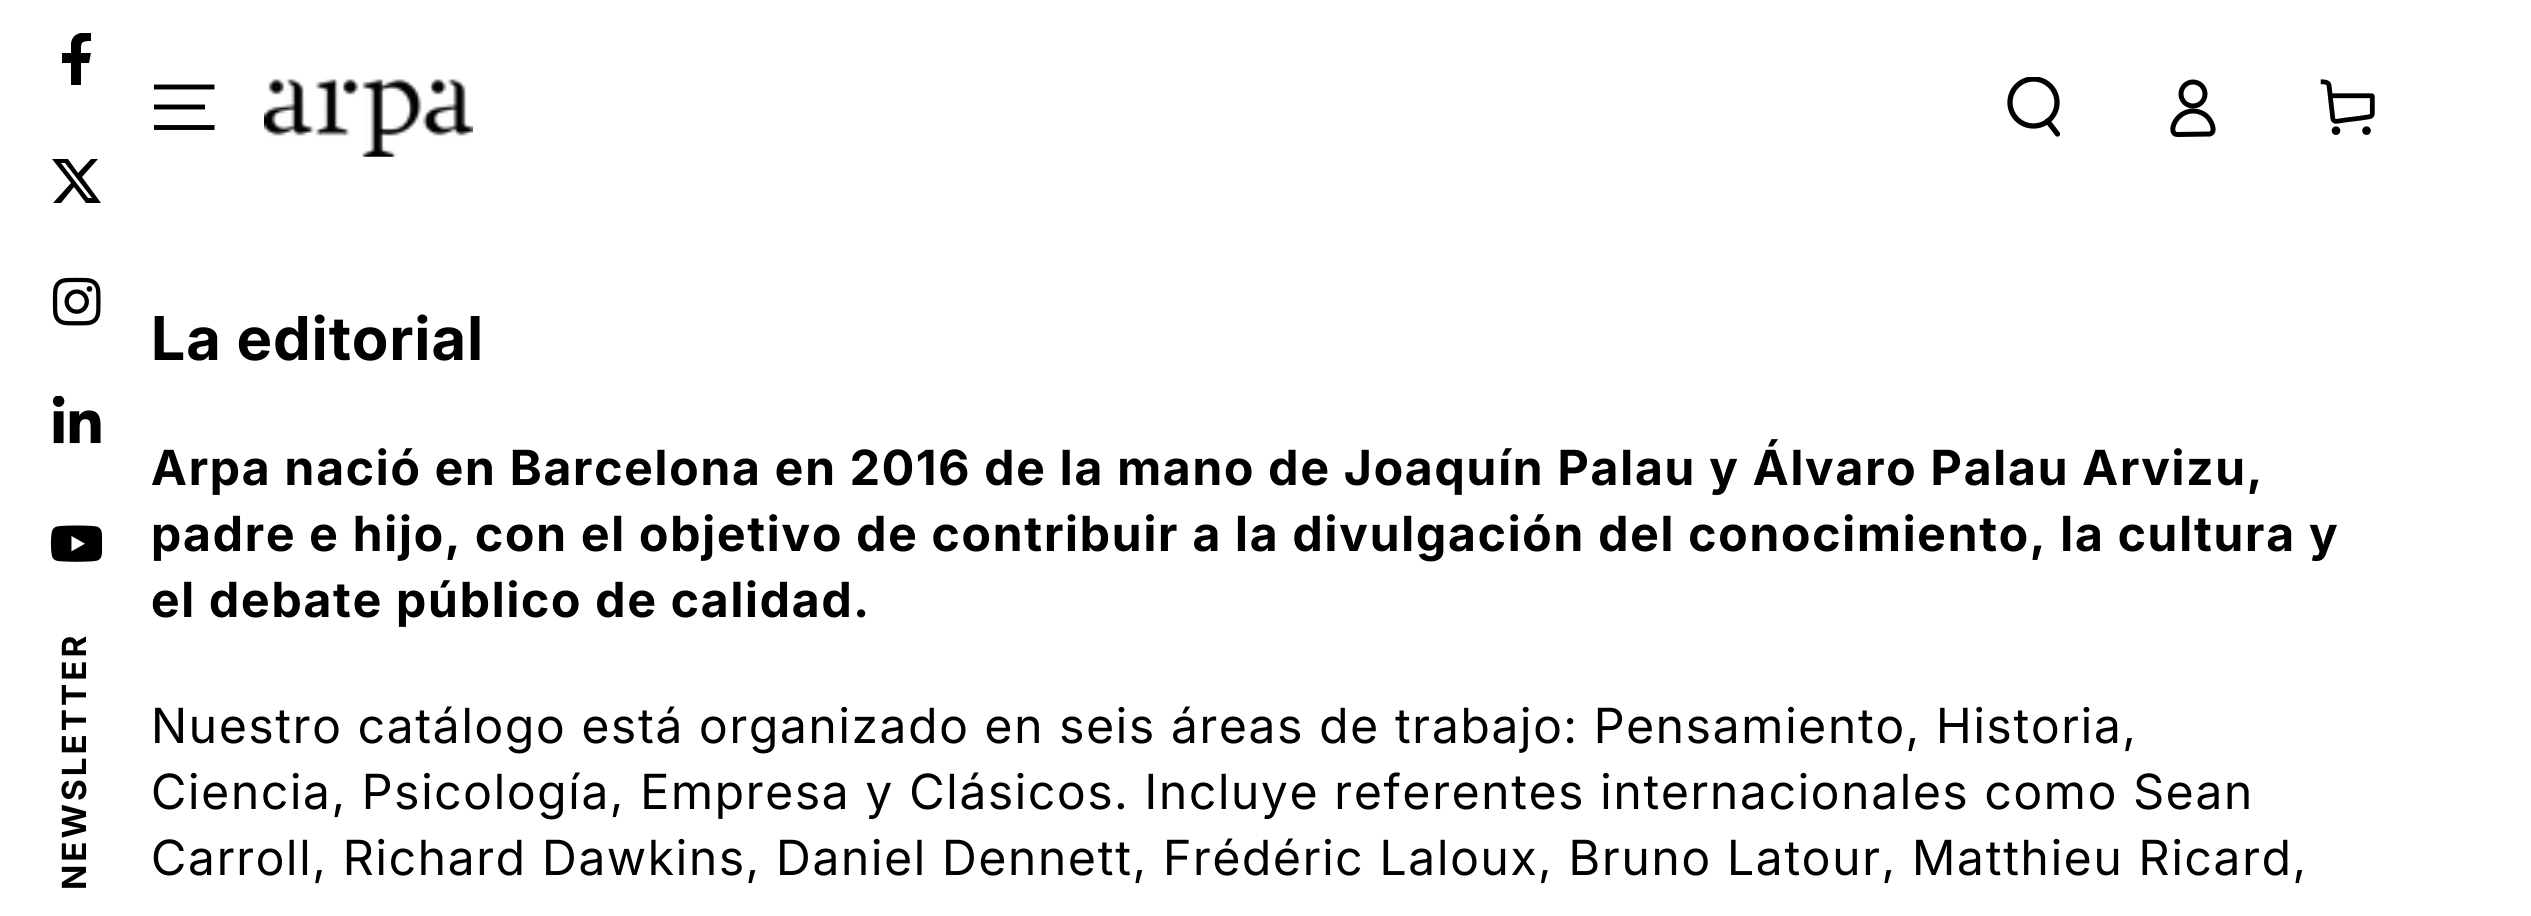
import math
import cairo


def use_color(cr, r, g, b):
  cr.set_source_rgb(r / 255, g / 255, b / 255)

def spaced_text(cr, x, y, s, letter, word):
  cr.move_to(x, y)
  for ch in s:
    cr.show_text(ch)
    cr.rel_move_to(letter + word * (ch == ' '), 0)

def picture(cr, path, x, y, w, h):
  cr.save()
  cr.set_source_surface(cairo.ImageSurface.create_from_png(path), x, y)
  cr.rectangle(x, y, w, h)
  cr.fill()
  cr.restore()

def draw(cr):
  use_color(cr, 255, 255, 255)
  cr.paint()
  cr.save()
  cr.rectangle(50, 33, 52, 52)
  cr.clip()
  use_color(cr, 0, 0, 0)
  cr.new_path()
  cr.move_to(89, 63)
  cr.line_to(91, 53)
  cr.line_to(81, 53)
  cr.curve_to(81, 43, 80, 41, 91, 41)
  cr.line_to(91, 33)
  cr.curve_to(83, 32, 73, 32, 71, 43)
  cr.line_to(71, 53)
  cr.line_to(62, 53)
  cr.line_to(62, 63)
  cr.line_to(71, 63)
  cr.line_to(71, 87)
  cr.line_to(81, 87)
  cr.line_to(81, 63)
  cr.close_path()
  cr.fill()
  cr.restore()
  use_color(cr, 0, 0, 0)
  cr.new_path()
  cr.move_to(91, 159)
  cr.line_to(98, 159)
  cr.line_to(82, 177)
  cr.line_to(101, 203)
  cr.line_to(86, 203)
  cr.line_to(74, 187)
  cr.line_to(61, 203)
  cr.line_to(53, 203)
  cr.line_to(71, 183)
  cr.line_to(52, 159)
  cr.line_to(68, 159)
  cr.line_to(78, 173)
  cr.close_path()
  cr.move_to(88, 198)
  cr.line_to(92, 198)
  cr.line_to(65, 163)
  cr.line_to(61, 163)
  cr.close_path()
  cr.fill()
  picture(cr, "img_01.png", 52, 277, 49, 49)
  picture(cr, "img_02.png", 52, 396, 49, 48)
  picture(cr, "img_03.png", 50, 525, 52, 37)
  cr.new_path()
  cr.move_to(154, 127.5)
  cr.line_to(214.5, 127.5)
  cr.move_to(154, 107)
  cr.line_to(205, 107)
  cr.move_to(154, 87)
  cr.line_to(214.5, 87)
  cr.set_line_width(4.9)
  cr.stroke()
  picture(cr, "img_04.png", 264, 79, 209, 78)
  cr.save()
  cr.rectangle(2005, 77, 60, 61)
  cr.clip()
  cr.arc(2033.5, 102.5, 23.5, 0, 2 * math.pi)
  cr.set_line_width(5.3)
  cr.stroke()
  cr.restore()
  cr.new_path()
  cr.move_to(2047.5, 121)
  cr.line_to(2057.5, 134)
  cr.set_line_width(5.3)
  cr.set_line_cap(cairo.LINE_CAP_ROUND)
  cr.stroke()
  cr.new_path()
  cr.move_to(2193, 111)
  cr.curve_to(2175, 111, 2167, 134.5, 2177.5, 134.5)
  cr.line_to(2210, 134)
  cr.curve_to(2217, 131.5, 2210.5, 119.5, 2207, 116.5)
  cr.curve_to(2203.5, 113, 2198, 111, 2193, 111)
  cr.close_path()
  cr.set_line_width(5)
  cr.set_line_cap(cairo.LINE_CAP_BUTT)
  cr.stroke()
  cr.arc(2193, 94, 12, 0, 2 * math.pi)
  cr.stroke()
  picture(cr, "img_05.png", 2320, 79, 55, 56)
  cr.select_font_face("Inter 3", cairo.FONT_SLANT_NORMAL, cairo.FONT_WEIGHT_BOLD)
  cr.set_font_size(33.25)
  cr.save()
  cr.translate(86, 890)
  cr.rotate(-90 * math.pi / 180)
  spaced_text(cr, 0, 0, "NEWSLETTER", 3, 0)
  cr.restore()
  cr.select_font_face("Inter", cairo.FONT_SLANT_NORMAL, cairo.FONT_WEIGHT_BOLD)
  cr.set_font_size(60.5)
  spaced_text(cr, 151, 360, "La editorial", 1.25, 0)
  cr.select_font_face("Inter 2", cairo.FONT_SLANT_NORMAL, cairo.FONT_WEIGHT_BOLD)
  cr.set_font_size(48.4)
  spaced_text(cr, 151, 485, "Arpa nació en Barcelona en 2016 de la mano de Joaquín Palau y Álvaro Palau Arvizu,", 1.82, 0)
  spaced_text(cr, 151, 551, "padre e hijo, con el objetivo de contribuir a la divulgación del conocimiento, la cultura y", 1.82, 0)
  spaced_text(cr, 151, 617, "el debate público de calidad.", 1.82, 0)
  cr.select_font_face("Inter")
  spaced_text(cr, 151, 743, "Nuestro catálogo está organizado en seis áreas de trabajo: Pensamiento, Historia,", 1.82, 0)
  spaced_text(cr, 151, 809, "Ciencia, Psicología, Empresa y Clásicos. Incluye referentes internacionales como Sean", 1.82, 0)
  spaced_text(cr, 151, 875, "Carroll, Richard Dawkins, Daniel Dennett, Frédéric Laloux, Bruno Latour, Matthieu Ricard,", 1.82, 0)


surface = cairo.ImageSurface(cairo.FORMAT_RGB24, 2531, 916)
cr = cairo.Context(surface)
options = cairo.FontOptions()
options.set_hint_metrics(cairo.HINT_METRICS_OFF)
options.set_hint_style(cairo.HINT_STYLE_NONE)
cr.set_font_options(options)
cr.set_miter_limit(4)
draw(cr)
surface.write_to_png("out.png")
